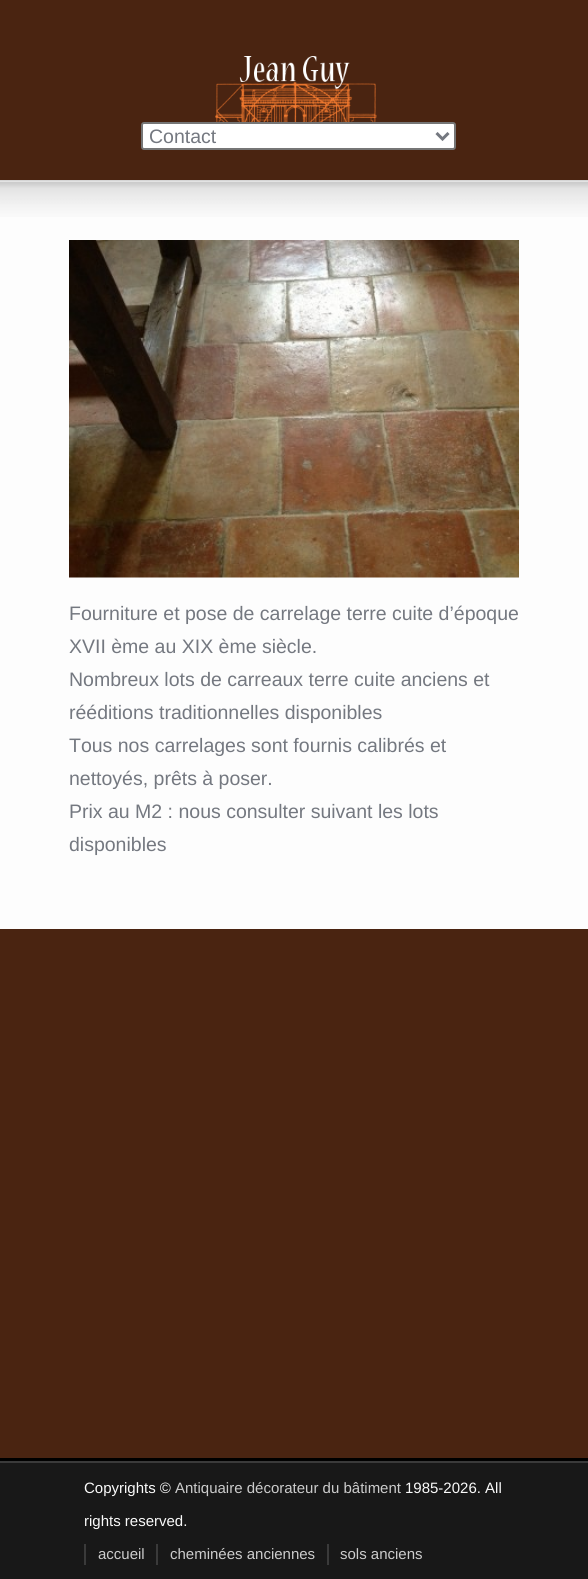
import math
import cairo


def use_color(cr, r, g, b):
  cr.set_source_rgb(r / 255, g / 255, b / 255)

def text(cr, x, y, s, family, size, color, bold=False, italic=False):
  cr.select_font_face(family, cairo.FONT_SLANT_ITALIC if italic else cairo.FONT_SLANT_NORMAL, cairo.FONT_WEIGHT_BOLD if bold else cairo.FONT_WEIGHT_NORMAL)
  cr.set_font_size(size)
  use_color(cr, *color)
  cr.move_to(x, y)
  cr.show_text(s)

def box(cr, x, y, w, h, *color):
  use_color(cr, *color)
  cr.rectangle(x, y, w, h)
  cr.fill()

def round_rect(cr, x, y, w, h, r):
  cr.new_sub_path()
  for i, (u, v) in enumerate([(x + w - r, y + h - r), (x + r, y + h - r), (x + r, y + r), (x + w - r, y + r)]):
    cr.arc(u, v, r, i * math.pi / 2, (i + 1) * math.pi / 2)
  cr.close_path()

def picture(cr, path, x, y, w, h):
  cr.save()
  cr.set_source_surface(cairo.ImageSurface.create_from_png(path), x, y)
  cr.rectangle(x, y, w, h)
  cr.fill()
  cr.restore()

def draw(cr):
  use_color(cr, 74, 36, 17)
  cr.paint()
  picture(cr, "img_01.png", 215, 56, 162, 66)
  use_color(cr, 255, 255, 255)
  round_rect(cr, 142, 123, 313, 26, 2)
  cr.fill_preserve()
  use_color(cr, 118, 118, 118)
  cr.stroke()
  cr.new_path()
  cr.move_to(436.5, 133)
  cr.line_to(442.5, 139)
  cr.line_to(448.5, 133)
  use_color(cr, 116, 120, 128)
  cr.set_line_width(3)
  cr.stroke()
  box(cr, 0, 182, 588, 747, 253, 253, 253)
  picture(cr, "img_02.png", 0, 180, 588, 37)
  picture(cr, "img_03.png", 69, 240, 450, 338)
  box(cr, 0, 1458, 588, 3, 0, 0, 0)
  box(cr, 0, 1463, 588, 116, 24, 24, 24)
  box(cr, 0, 1461, 588, 2, 58, 58, 58)
  box(cr, 84, 1544, 2, 21, 58, 58, 58)
  box(cr, 156, 1544, 2, 21, 58, 58, 58)
  box(cr, 327, 1544, 2, 21, 58, 58, 58)
  text(cr, 149, 143, "Contact", "Liberation Sans", 19.5, (116, 120, 128))
  text(cr, 69, 620, "Fourniture et pose de carrelage terre cuite d’époque", "Liberation Sans", 19.5, (116, 120, 128))
  text(cr, 69, 653, "XVII ème au XIX ème siècle.", "Liberation Sans", 19.5, (116, 120, 128))
  text(cr, 69, 686, "Nombreux lots de carreaux terre cuite anciens et", "Liberation Sans", 19.5, (116, 120, 128))
  text(cr, 69, 719, "rééditions traditionnelles disponibles", "Liberation Sans", 19.5, (116, 120, 128))
  text(cr, 69, 752, "Tous nos carrelages sont fournis calibrés et", "Liberation Sans", 19.5, (116, 120, 128))
  text(cr, 69, 785, "nettoyés, prêts à poser.", "Liberation Sans", 19.5, (116, 120, 128))
  text(cr, 69, 818, "Prix au M2 : nous consulter suivant les lots", "Liberation Sans", 19.5, (116, 120, 128))
  text(cr, 69, 851, "disponibles", "Liberation Sans", 19.5, (116, 120, 128))
  text(cr, 84, 1493, "Copyrights ©", "Liberation Sans", 15, (250, 250, 250))
  text(cr, 175, 1493, "Antiquaire décorateur du bâtiment", "Liberation Sans", 15, (204, 204, 204))
  text(cr, 405, 1493, "1985-2026. All", "Liberation Sans", 15, (250, 250, 250))
  text(cr, 84, 1526, "rights reserved.", "Liberation Sans", 15, (250, 250, 250))
  text(cr, 98, 1559, "accueil", "Liberation Sans", 15, (204, 204, 204))
  text(cr, 170, 1559, "cheminées anciennes", "Liberation Sans", 15, (204, 204, 204))
  text(cr, 340, 1559, "sols anciens", "Liberation Sans", 15, (204, 204, 204))


surface = cairo.ImageSurface(cairo.FORMAT_RGB24, 588, 1579)
cr = cairo.Context(surface)
options = cairo.FontOptions()
options.set_hint_metrics(cairo.HINT_METRICS_OFF)
options.set_hint_style(cairo.HINT_STYLE_NONE)
cr.set_font_options(options)
cr.set_miter_limit(4)
draw(cr)
surface.write_to_png("out.png")
